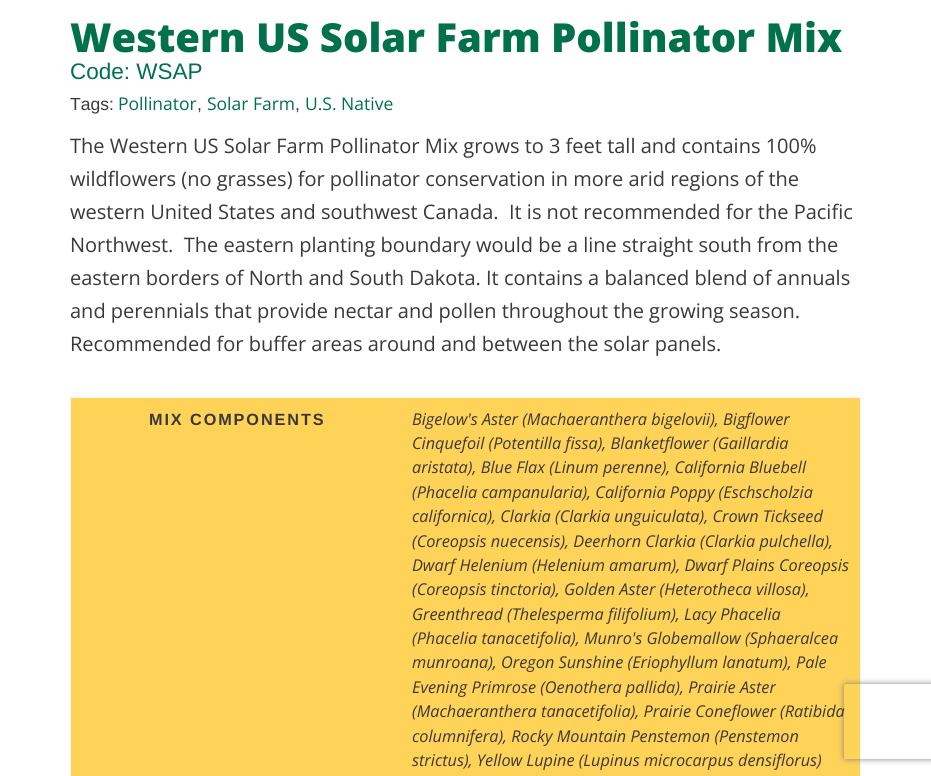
import math
import cairo


def use_color(cr, r, g, b):
  cr.set_source_rgb(r / 255, g / 255, b / 255)

def text(cr, x, y, s, family, size, color, bold=False, italic=False):
  cr.select_font_face(family, cairo.FONT_SLANT_ITALIC if italic else cairo.FONT_SLANT_NORMAL, cairo.FONT_WEIGHT_BOLD if bold else cairo.FONT_WEIGHT_NORMAL)
  cr.set_font_size(size)
  use_color(cr, *color)
  cr.move_to(x, y)
  cr.show_text(s)

def spaced_text(cr, x, y, s, letter, word):
  cr.move_to(x, y)
  for ch in s:
    cr.show_text(ch)
    cr.rel_move_to(letter + word * (ch == ' '), 0)

def box(cr, x, y, w, h, *color):
  use_color(cr, *color)
  cr.rectangle(x, y, w, h)
  cr.fill()

def round_rect(cr, x, y, w, h, r):
  cr.new_sub_path()
  for i, (u, v) in enumerate([(x + w - r, y + h - r), (x + r, y + h - r), (x + r, y + r), (x + w - r, y + r)]):
    cr.arc(u, v, r, i * math.pi / 2, (i + 1) * math.pi / 2)
  cr.close_path()

def shadow(cr, x, y, w, h, r, blur, alpha):
  cr.push_group_with_content(cairo.CONTENT_ALPHA)
  cr.set_operator(cairo.OPERATOR_SOURCE)
  for i in range(15, -16, -2):
    e = blur * i / 6
    if min(w, h) + 2 * e > 0:
      cr.set_source_rgba(0, 0, 0, alpha * math.erfc((i - 1) / 8.5) / 2)
      round_rect(cr, x - e, y - e, w + 2 * e, h + 2 * e, max(0, min(r + e + blur * .6, min(w, h) / 2 + e)))
      cr.fill()
  cr.mask(cr.pop_group())

def draw(cr):
  use_color(cr, 255, 255, 255)
  cr.paint()
  box(cr, 70, 396, 791, 380, 248, 248, 248)
  box(cr, 71, 398, 789, 378, 255, 210, 88)
  cr.save()
  cr.set_fill_rule(cairo.FILL_RULE_EVEN_ODD)
  cr.new_path()
  cr.move_to(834, 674)
  cr.line_to(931, 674)
  cr.line_to(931, 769)
  cr.line_to(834, 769)
  cr.close_path()
  cr.move_to(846.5, 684)
  cr.line_to(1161.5, 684)
  cr.curve_to(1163, 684, 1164, 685, 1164, 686.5)
  cr.line_to(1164, 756.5)
  cr.curve_to(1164, 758, 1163, 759, 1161.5, 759)
  cr.line_to(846.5, 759)
  cr.curve_to(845, 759, 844, 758, 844, 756.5)
  cr.line_to(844, 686.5)
  cr.curve_to(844, 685, 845, 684, 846.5, 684)
  cr.close_path()
  cr.clip()
  use_color(cr, 128, 128, 128)
  shadow(cr, 844, 684, 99, 75, 2.5, 3, 1)
  cr.restore()
  text(cr, 70, 52, "Western US Solar Farm Pollinator Mix", "Open Sans ExtraBold", 40, (0, 113, 73))
  text(cr, 70, 79, "Code: WSAP", "Liberation Sans", 22.5, (0, 113, 73))
  text(cr, 70, 110, "Tags:", "Liberation Sans", 17.5, (57, 57, 57))
  text(cr, 118, 110, "Pollinator", "Open Sans", 17.5, (0, 113, 73))
  text(cr, 197, 110, ",", "Liberation Sans", 17.5, (57, 57, 57))
  text(cr, 207, 110, "Solar Farm", "Open Sans", 17.5, (0, 113, 73))
  text(cr, 295, 110, ",", "Liberation Sans", 17.5, (57, 57, 57))
  text(cr, 305, 110, "U.S. Native", "Open Sans", 17.5, (0, 113, 73))
  text(cr, 70, 153, "The Western US Solar Farm Pollinator Mix grows to 3 feet tall and contains 100%", "Open Sans", 20, (57, 57, 57))
  text(cr, 70, 186, "wildflowers (no grasses) for pollinator conservation in more arid regions of the", "Open Sans", 20, (57, 57, 57))
  text(cr, 70, 219, "western United States and southwest Canada.  It is not recommended for the Pacific", "Open Sans", 20, (57, 57, 57))
  text(cr, 70, 252, "Northwest.  The eastern planting boundary would be a line straight south from the", "Open Sans", 20, (57, 57, 57))
  text(cr, 70, 285, "eastern borders of North and South Dakota. It contains a balanced blend of annuals", "Open Sans", 20, (57, 57, 57))
  text(cr, 70, 318, "and perennials that provide nectar and pollen throughout the growing season.", "Open Sans", 20, (57, 57, 57))
  text(cr, 70, 351, "Recommended for buffer areas around and between the solar panels.", "Open Sans", 20, (57, 57, 57))
  cr.select_font_face("Liberation Sans", cairo.FONT_SLANT_NORMAL, cairo.FONT_WEIGHT_BOLD)
  cr.set_font_size(16.25)
  spaced_text(cr, 149, 425, "MIX COMPONENTS", 1.9, 0)
  text(cr, 412, 425, "Bigelow's Aster (Machaeranthera bigelovii), Bigflower", "Open Sans", 16.25, (57, 57, 57), italic=True)
  text(cr, 412, 449, "Cinquefoil (Potentilla fissa), Blanketflower (Gaillardia", "Open Sans", 16.25, (57, 57, 57), italic=True)
  text(cr, 412, 473, "aristata), Blue Flax (Linum perenne), California Bluebell", "Open Sans", 16.25, (57, 57, 57), italic=True)
  text(cr, 412, 498, "(Phacelia campanularia), California Poppy (Eschscholzia", "Open Sans", 16.25, (57, 57, 57), italic=True)
  text(cr, 412, 522, "californica), Clarkia (Clarkia unguiculata), Crown Tickseed", "Open Sans", 16.25, (57, 57, 57), italic=True)
  text(cr, 412, 547, "(Coreopsis nuecensis), Deerhorn Clarkia (Clarkia pulchella),", "Open Sans", 16.25, (57, 57, 57), italic=True)
  text(cr, 412, 571, "Dwarf Helenium (Helenium amarum), Dwarf Plains Coreopsis", "Open Sans", 16.25, (57, 57, 57), italic=True)
  text(cr, 412, 595, "(Coreopsis tinctoria), Golden Aster (Heterotheca villosa),", "Open Sans", 16.25, (57, 57, 57), italic=True)
  text(cr, 412, 620, "Greenthread (Thelesperma filifolium), Lacy Phacelia", "Open Sans", 16.25, (57, 57, 57), italic=True)
  text(cr, 412, 644, "(Phacelia tanacetifolia), Munro's Globemallow (Sphaeralcea", "Open Sans", 16.25, (57, 57, 57), italic=True)
  text(cr, 412, 668, "munroana), Oregon Sunshine (Eriophyllum lanatum), Pale", "Open Sans", 16.25, (57, 57, 57), italic=True)
  text(cr, 412, 693, "Evening Primrose (Oenothera pallida), Prairie Aster", "Open Sans", 16.25, (57, 57, 57), italic=True)
  text(cr, 412, 717, "(Machaeranthera tanacetifolia), Prairie Coneflower (Ratibida", "Open Sans", 16.25, (57, 57, 57), italic=True)
  text(cr, 412, 742, "columnifera), Rocky Mountain Penstemon (Penstemon", "Open Sans", 16.25, (57, 57, 57), italic=True)
  text(cr, 412, 766, "strictus), Yellow Lupine (Lupinus microcarpus densiflorus)", "Open Sans", 16.25, (57, 57, 57), italic=True)


surface = cairo.ImageSurface(cairo.FORMAT_RGB24, 931, 776)
cr = cairo.Context(surface)
options = cairo.FontOptions()
options.set_hint_metrics(cairo.HINT_METRICS_OFF)
options.set_hint_style(cairo.HINT_STYLE_NONE)
cr.set_font_options(options)
cr.set_miter_limit(4)
draw(cr)
surface.write_to_png("out.png")
